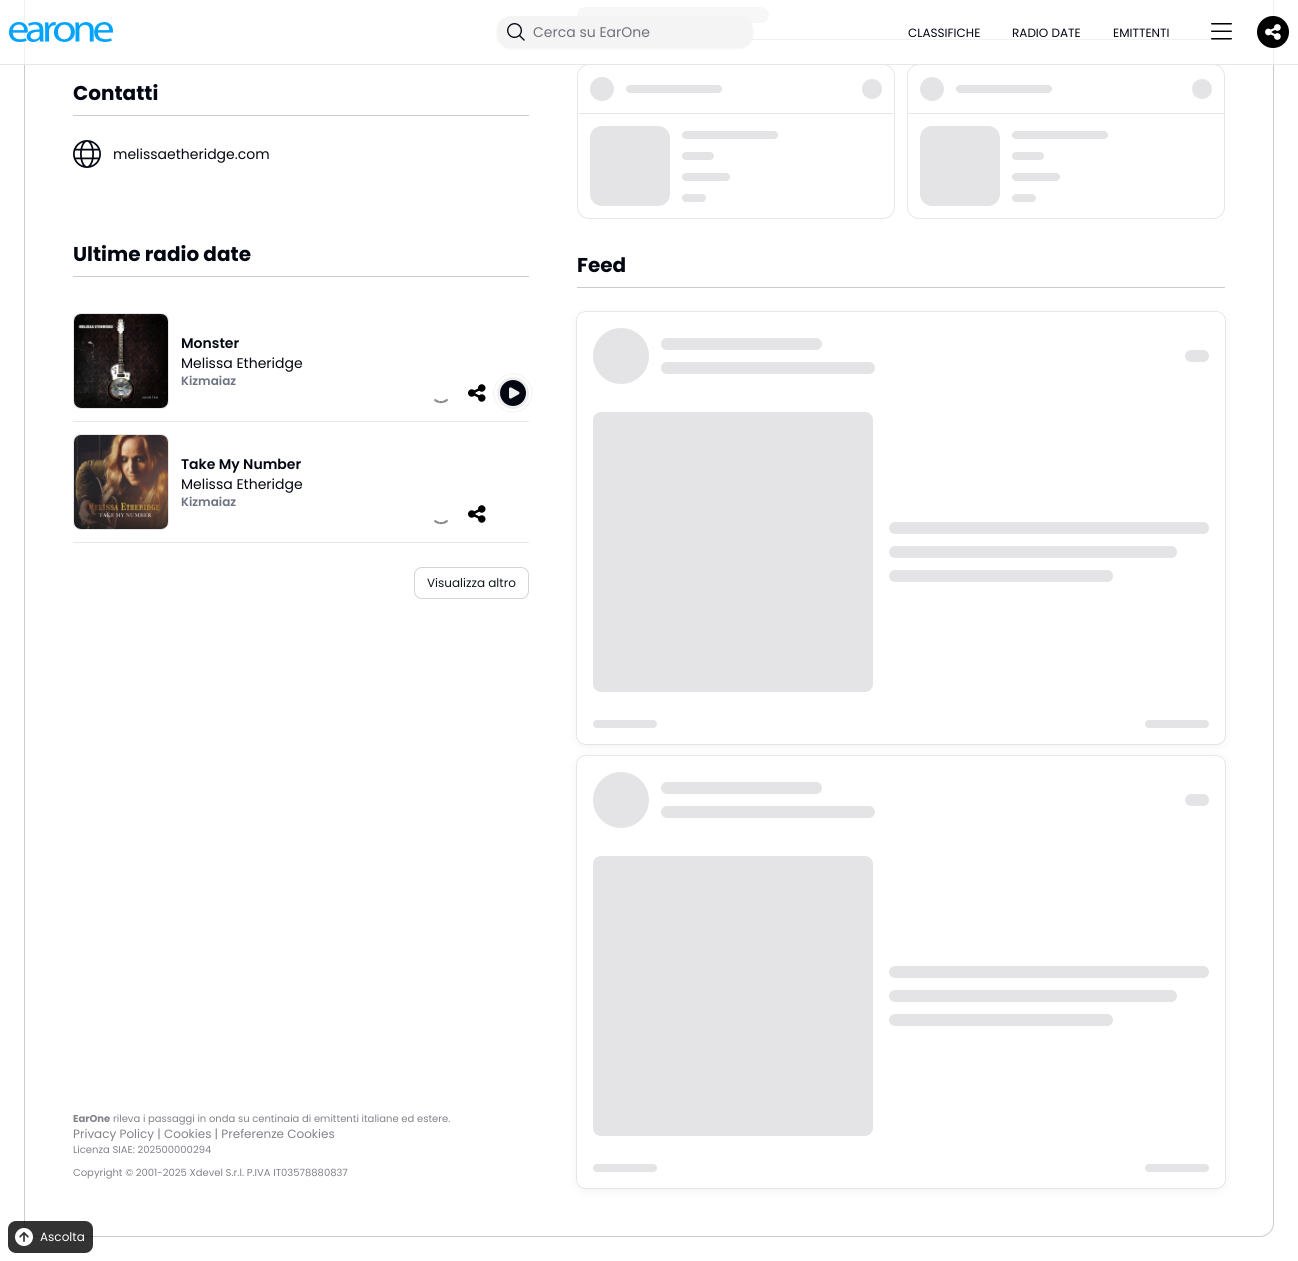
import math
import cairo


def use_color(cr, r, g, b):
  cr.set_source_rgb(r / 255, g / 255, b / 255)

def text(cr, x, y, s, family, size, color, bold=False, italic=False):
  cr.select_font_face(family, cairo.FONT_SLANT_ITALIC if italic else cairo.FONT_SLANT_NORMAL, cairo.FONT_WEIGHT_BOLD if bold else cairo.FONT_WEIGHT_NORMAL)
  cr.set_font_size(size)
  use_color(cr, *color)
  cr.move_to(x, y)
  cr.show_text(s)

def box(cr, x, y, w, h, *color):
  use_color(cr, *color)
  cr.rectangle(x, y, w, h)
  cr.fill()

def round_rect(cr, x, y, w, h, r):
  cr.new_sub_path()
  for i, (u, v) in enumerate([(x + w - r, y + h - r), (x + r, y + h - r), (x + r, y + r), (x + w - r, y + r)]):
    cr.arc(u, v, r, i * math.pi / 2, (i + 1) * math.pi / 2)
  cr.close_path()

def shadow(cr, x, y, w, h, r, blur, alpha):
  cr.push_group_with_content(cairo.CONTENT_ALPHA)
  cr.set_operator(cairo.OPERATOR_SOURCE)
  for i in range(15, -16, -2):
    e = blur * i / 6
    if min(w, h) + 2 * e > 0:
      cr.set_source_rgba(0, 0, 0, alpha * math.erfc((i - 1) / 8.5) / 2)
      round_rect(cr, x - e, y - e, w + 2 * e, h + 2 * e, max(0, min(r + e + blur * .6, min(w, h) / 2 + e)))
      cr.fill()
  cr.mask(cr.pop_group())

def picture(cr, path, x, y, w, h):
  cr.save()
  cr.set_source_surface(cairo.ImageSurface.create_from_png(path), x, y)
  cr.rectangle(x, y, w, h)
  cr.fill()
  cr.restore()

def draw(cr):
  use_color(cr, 255, 255, 255)
  cr.paint()
  round_rect(cr, 24.5, -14.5, 1249, 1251, 13.5)
  use_color(cr, 204, 204, 204)
  cr.set_line_width(1)
  cr.stroke()
  box(cr, 751, 39, 474, 1, 204, 204, 204)
  use_color(cr, 228, 228, 231)
  round_rect(cr, 577, 7, 192, 16, 8)
  cr.fill()
  cr.set_source_rgba(1, 1, 1, 0.7)
  cr.rectangle(24, 0, 1250, 64)
  cr.fill()
  round_rect(cr, 577.5, 64.5, 317, 154, 11.5)
  use_color(cr, 229, 231, 235)
  cr.stroke()
  round_rect(cr, 907.5, 64.5, 317, 154, 11.5)
  cr.stroke()
  box(cr, 0, 64, 1298, 1, 229, 231, 235)
  picture(cr, "img_01.png", 9, 22, 104, 20)
  use_color(cr, 0, 0, 0)
  shadow(cr, 497, 17, 256, 32, 14, 1, 0.05)
  use_color(cr, 244, 244, 245)
  round_rect(cr, 497, 16, 256, 32, 14)
  cr.fill()
  picture(cr, "img_02.png", 507, 23, 18, 18)
  picture(cr, "img_03.png", 1211, 23, 21, 17)
  use_color(cr, 0, 0, 0)
  cr.arc(1273, 32, 16, 0, 2 * math.pi)
  cr.fill()
  picture(cr, "img_04.png", 1265, 24, 16, 16)
  box(cr, 73, 115, 456, 1, 204, 204, 204)
  picture(cr, "img_05.png", 73, 140, 28, 28)
  box(cr, 73, 276, 456, 1, 204, 204, 204)
  box(cr, 73, 421, 456, 1, 229, 231, 235)
  round_rect(cr, 73.5, 313.5, 95, 95, 7.5)
  cr.stroke()
  picture(cr, "img_06.png", 74, 314, 94, 94)
  cr.new_path()
  cr.move_to(447.5, 399.5)
  cr.curve_to(444, 403, 438, 403, 434.5, 399.5)
  use_color(cr, 128, 128, 128)
  cr.set_line_width(2)
  cr.stroke()
  cr.new_path()
  cr.move_to(447.5, 399.5)
  cr.curve_to(444, 403, 438, 403, 434.5, 399.5)
  use_color(cr, 159, 159, 159)
  cr.set_dash([2, 2])
  cr.stroke()
  picture(cr, "img_07.png", 468, 384, 18, 18)
  cr.new_path()
  cr.move_to(494, 393)
  cr.curve_to(494, 382.5, 502.5, 374, 513, 374)
  cr.curve_to(523.5, 374, 532, 382.5, 532, 393)
  cr.curve_to(532, 403.5, 523.5, 412, 513, 412)
  cr.curve_to(502.5, 412, 494, 403.5, 494, 393)
  use_color(cr, 245, 245, 246)
  cr.set_line_width(1.2)
  cr.set_line_cap(cairo.LINE_CAP_ROUND)
  cr.set_dash([])
  cr.stroke()
  use_color(cr, 238, 238, 239)
  cr.arc(513, 393, 16, 0, 2 * math.pi)
  cr.fill()
  picture(cr, "img_08.png", 500, 380, 26, 26)
  box(cr, 73, 542, 456, 1, 229, 231, 235)
  round_rect(cr, 73.5, 434.5, 95, 95, 7.5)
  cr.set_line_width(1)
  cr.set_line_cap(cairo.LINE_CAP_BUTT)
  cr.stroke()
  picture(cr, "img_09.png", 74, 435, 94, 94)
  cr.new_path()
  cr.move_to(447.5, 520.5)
  cr.curve_to(444, 524, 438, 524, 434.5, 520.5)
  use_color(cr, 128, 128, 128)
  cr.set_line_width(2)
  cr.stroke()
  cr.new_path()
  cr.move_to(447.5, 520.5)
  cr.curve_to(444, 524, 438, 524, 434.5, 520.5)
  use_color(cr, 159, 159, 159)
  cr.set_dash([2, 2])
  cr.stroke()
  picture(cr, "img_07.png", 468, 505, 18, 18)
  round_rect(cr, 414.5, 567.5, 114, 31, 7.5)
  use_color(cr, 212, 212, 216)
  cr.set_line_width(1)
  cr.set_dash([])
  cr.stroke()
  box(cr, 578, 113, 316, 1, 229, 231, 235)
  use_color(cr, 228, 228, 231)
  cr.arc(602, 89, 12, 0, 2 * math.pi)
  cr.fill()
  round_rect(cr, 626, 85, 96, 8, 4)
  cr.fill()
  cr.arc(872, 89, 10, 0, 2 * math.pi)
  cr.fill()
  round_rect(cr, 590, 126, 80, 80, 12)
  cr.fill()
  round_rect(cr, 682, 131, 96, 8, 4)
  cr.fill()
  round_rect(cr, 682, 152, 32, 8, 4)
  cr.fill()
  round_rect(cr, 682, 173, 48, 8, 4)
  cr.fill()
  round_rect(cr, 682, 194, 24, 8, 4)
  cr.fill()
  box(cr, 908, 113, 316, 1, 229, 231, 235)
  use_color(cr, 228, 228, 231)
  cr.arc(932, 89, 12, 0, 2 * math.pi)
  cr.fill()
  round_rect(cr, 956, 85, 96, 8, 4)
  cr.fill()
  cr.arc(1202, 89, 10, 0, 2 * math.pi)
  cr.fill()
  round_rect(cr, 920, 126, 80, 80, 12)
  cr.fill()
  round_rect(cr, 1012, 131, 96, 8, 4)
  cr.fill()
  round_rect(cr, 1012, 152, 32, 8, 4)
  cr.fill()
  round_rect(cr, 1012, 173, 48, 8, 4)
  cr.fill()
  round_rect(cr, 1012, 194, 24, 8, 4)
  cr.fill()
  box(cr, 577, 287, 648, 1, 204, 204, 204)
  use_color(cr, 0, 0, 0)
  shadow(cr, 577, 312, 648, 432, 8, 0.5, 0.3)
  shadow(cr, 577, 314, 648, 432, 8, 5, 0.06)
  use_color(cr, 255, 255, 255)
  round_rect(cr, 577, 312, 648, 432, 8)
  cr.fill()
  use_color(cr, 228, 228, 231)
  cr.arc(621, 356, 28, 0, 2 * math.pi)
  cr.fill()
  round_rect(cr, 661, 338, 161, 12, 6)
  cr.fill()
  round_rect(cr, 661, 362, 214, 12, 6)
  cr.fill()
  round_rect(cr, 1185, 350, 24, 12, 6)
  cr.fill()
  round_rect(cr, 593, 412, 280, 280, 8)
  cr.fill()
  round_rect(cr, 889, 522, 320, 12, 6)
  cr.fill()
  round_rect(cr, 889, 546, 288, 12, 6)
  cr.fill()
  round_rect(cr, 889, 570, 224, 12, 6)
  cr.fill()
  round_rect(cr, 593, 720, 64, 8, 4)
  cr.fill()
  round_rect(cr, 1145, 720, 64, 8, 4)
  cr.fill()
  use_color(cr, 0, 0, 0)
  shadow(cr, 577, 756, 648, 432, 8, 0.5, 0.3)
  shadow(cr, 577, 758, 648, 432, 8, 5, 0.06)
  use_color(cr, 255, 255, 255)
  round_rect(cr, 577, 756, 648, 432, 8)
  cr.fill()
  use_color(cr, 228, 228, 231)
  cr.arc(621, 800, 28, 0, 2 * math.pi)
  cr.fill()
  round_rect(cr, 661, 782, 161, 12, 6)
  cr.fill()
  round_rect(cr, 661, 806, 214, 12, 6)
  cr.fill()
  round_rect(cr, 1185, 794, 24, 12, 6)
  cr.fill()
  round_rect(cr, 593, 856, 280, 280, 8)
  cr.fill()
  round_rect(cr, 889, 966, 320, 12, 6)
  cr.fill()
  round_rect(cr, 889, 990, 288, 12, 6)
  cr.fill()
  round_rect(cr, 889, 1014, 224, 12, 6)
  cr.fill()
  round_rect(cr, 593, 1164, 64, 8, 4)
  cr.fill()
  round_rect(cr, 1145, 1164, 64, 8, 4)
  cr.fill()
  cr.set_source_rgba(0, 0, 0, 0.8)
  round_rect(cr, 8, 1221, 85, 32, 8)
  cr.fill()
  picture(cr, "img_10.png", 15, 1228, 18, 18)
  text(cr, 533, 37, "Cerca su EarOne", "Poppins", 14, (113, 113, 122))
  text(cr, 908, 37, "CLASSIFICHE", "Poppins", 12, (3, 7, 18))
  text(cr, 1012, 37, "RADIO DATE", "Poppins", 12, (3, 7, 18))
  text(cr, 1113, 37, "EMITTENTI", "Poppins", 12, (3, 7, 18))
  text(cr, 73, 100, "Contatti", "Poppins", 20, (3, 7, 18), bold=True)
  text(cr, 113, 159, "melissaetheridge.com", "Poppins", 14, (3, 7, 18))
  text(cr, 73, 261, "Ultime radio date", "Poppins", 20, (3, 7, 18), bold=True)
  text(cr, 181, 348, "Monster", "Poppins SemiBold", 14, (3, 7, 18))
  text(cr, 181, 368, "Melissa Etheridge", "Poppins", 14, (3, 7, 18))
  text(cr, 181, 385, "Kizmaiaz", "Poppins SemiBold", 12, (107, 114, 128))
  text(cr, 181, 469, "Take My Number", "Poppins SemiBold", 14, (3, 7, 18))
  text(cr, 181, 489, "Melissa Etheridge", "Poppins", 14, (3, 7, 18))
  text(cr, 181, 506, "Kizmaiaz", "Poppins SemiBold", 12, (107, 114, 128))
  text(cr, 427, 587, "Visualizza altro", "Poppins", 12, (17, 24, 28))
  text(cr, 73, 1122, "EarOne", "Poppins", 10, (129, 131, 137), bold=True)
  text(cr, 113, 1122, "rileva i passaggi in onda su centinaia di emittenti italiane ed estere.", "Poppins", 10, (129, 131, 137))
  text(cr, 73, 1138, "Privacy Policy | Cookies | Preferenze Cookies", "Poppins", 12, (129, 131, 137))
  text(cr, 73, 1153, "Licenza SIAE: 202500000294", "Poppins", 10, (129, 131, 137))
  text(cr, 73, 1176, "Copyright © 2001-2025 Xdevel S.r.l. P.IVA IT03578880837", "Poppins", 10, (129, 131, 137))
  text(cr, 577, 272, "Feed", "Poppins", 20, (3, 7, 18), bold=True)
  text(cr, 40, 1241, "Ascolta", "Poppins", 12, (255, 255, 255))


surface = cairo.ImageSurface(cairo.FORMAT_RGB24, 1298, 1261)
cr = cairo.Context(surface)
options = cairo.FontOptions()
options.set_hint_metrics(cairo.HINT_METRICS_OFF)
options.set_hint_style(cairo.HINT_STYLE_NONE)
cr.set_font_options(options)
cr.set_miter_limit(4)
draw(cr)
surface.write_to_png("out.png")
